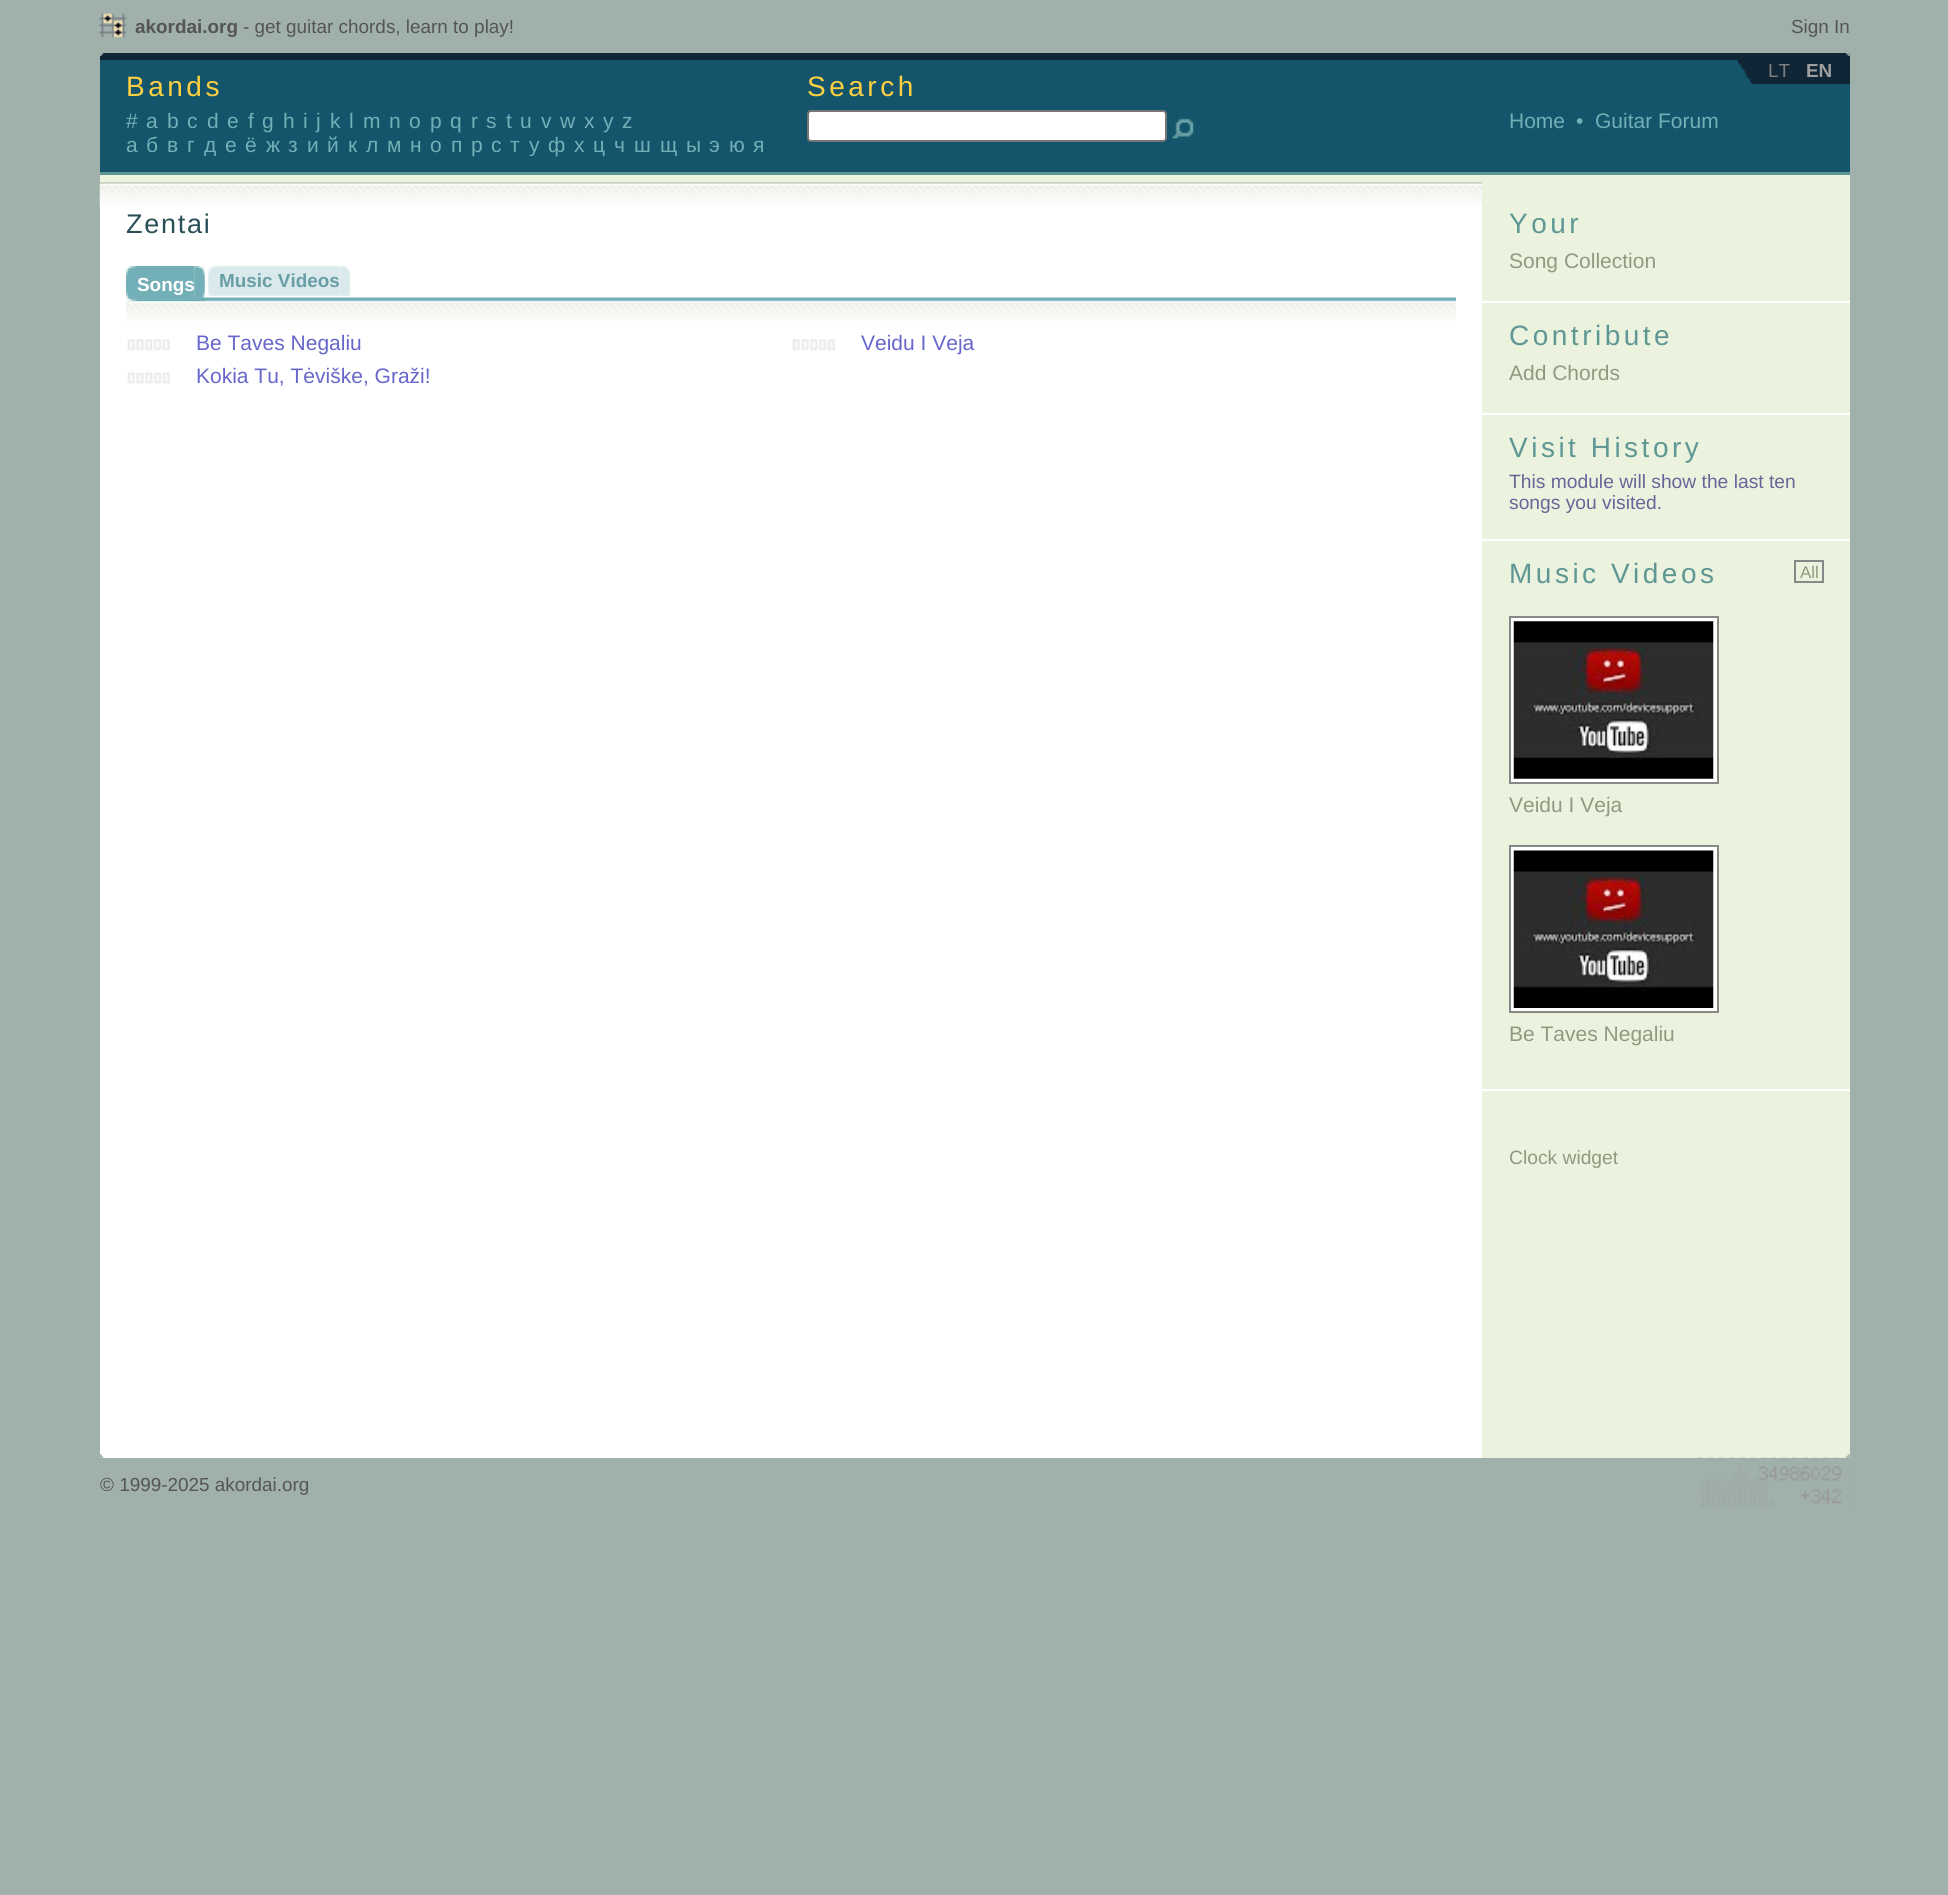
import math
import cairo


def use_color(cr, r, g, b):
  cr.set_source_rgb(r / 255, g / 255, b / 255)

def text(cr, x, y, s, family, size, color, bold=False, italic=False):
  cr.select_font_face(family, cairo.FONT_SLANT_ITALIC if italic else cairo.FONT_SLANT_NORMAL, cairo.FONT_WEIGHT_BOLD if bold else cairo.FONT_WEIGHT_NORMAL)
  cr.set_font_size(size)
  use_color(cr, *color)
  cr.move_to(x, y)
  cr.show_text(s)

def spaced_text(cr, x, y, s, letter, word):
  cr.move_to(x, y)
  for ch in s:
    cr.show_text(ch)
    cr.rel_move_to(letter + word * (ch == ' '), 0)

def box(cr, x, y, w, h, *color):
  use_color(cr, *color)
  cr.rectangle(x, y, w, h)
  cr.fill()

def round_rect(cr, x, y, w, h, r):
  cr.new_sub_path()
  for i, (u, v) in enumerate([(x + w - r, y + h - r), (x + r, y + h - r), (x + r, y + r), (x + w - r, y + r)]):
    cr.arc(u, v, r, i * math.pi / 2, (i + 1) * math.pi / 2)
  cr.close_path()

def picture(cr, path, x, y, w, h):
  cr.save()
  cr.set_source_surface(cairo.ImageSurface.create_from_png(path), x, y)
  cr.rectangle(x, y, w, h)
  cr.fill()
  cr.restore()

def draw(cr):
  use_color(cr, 160, 176, 170)
  cr.paint()
  picture(cr, "img_01.png", 99, 13, 28, 25)
  box(cr, 100, 60, 1750, 112, 20, 85, 107)
  box(cr, 100, 53, 1750, 7, 16, 37, 54)
  box(cr, 100, 172, 1750, 3, 95, 151, 148)
  picture(cr, "img_02.png", 100, 53, 4, 3)
  picture(cr, "img_03.png", 1846, 53, 4, 3)
  box(cr, 1753, 60, 97, 24, 16, 37, 54)
  picture(cr, "img_04.png", 1737, 60, 16, 24)
  use_color(cr, 255, 255, 255)
  round_rect(cr, 808, 111, 358, 30, 3)
  cr.fill_preserve()
  use_color(cr, 118, 118, 118)
  cr.stroke()
  picture(cr, "img_05.png", 1172, 118, 22, 21)
  box(cr, 100, 206, 1382, 1252, 255, 255, 255)
  box(cr, 100, 175, 1750, 7, 235, 242, 222)
  picture(cr, "img_06.png", 99, 182, 1383, 25)
  picture(cr, "img_07.png", 126, 297, 1330, 24)
  picture(cr, "img_08.png", 126, 266, 69, 35)
  picture(cr, "img_09.png", 194, 266, 11, 35)
  picture(cr, "img_10.png", 208, 265, 132, 31)
  picture(cr, "img_11.png", 339, 265, 11, 31)
  picture(cr, "img_12.png", 127, 339, 43, 12)
  picture(cr, "img_13.png", 127, 372, 43, 12)
  picture(cr, "img_14.png", 792, 339, 43, 12)
  box(cr, 1482, 182, 368, 1276, 235, 242, 222)
  box(cr, 1482, 301, 368, 2, 255, 255, 255)
  box(cr, 1482, 413, 368, 2, 255, 255, 255)
  box(cr, 1482, 539, 368, 2, 255, 255, 255)
  cr.rectangle(1795, 561, 28, 21)
  use_color(cr, 136, 136, 136)
  cr.stroke()
  use_color(cr, 255, 255, 255)
  cr.rectangle(1510, 617, 208, 166)
  cr.fill_preserve()
  use_color(cr, 136, 136, 136)
  cr.stroke()
  picture(cr, "img_15.png", 1513, 621, 201, 158)
  use_color(cr, 255, 255, 255)
  cr.rectangle(1510, 846, 208, 166)
  cr.fill_preserve()
  use_color(cr, 136, 136, 136)
  cr.stroke()
  picture(cr, "img_16.png", 1513, 850, 201, 158)
  box(cr, 1482, 1089, 368, 2, 255, 255, 255)
  picture(cr, "img_17.png", 100, 1454, 4, 4)
  picture(cr, "img_19.png", 1697, 1457, 153, 50)
  picture(cr, "img_18.png", 1846, 1454, 4, 4)
  text(cr, 135, 33, "akordai.org", "Liberation Sans", 18.9, (85, 85, 85), bold=True)
  text(cr, 243, 33, "- get guitar chords, learn to play!", "Liberation Sans", 18.9, (85, 85, 85))
  text(cr, 1791, 33, "Sign In", "Liberation Sans", 18.9, (85, 85, 85))
  text(cr, 1768, 77, "LT", "Liberation Sans", 18.9, (128, 128, 128))
  text(cr, 1806, 77, "EN", "Liberation Sans", 18.9, (159, 159, 159), bold=True)
  cr.select_font_face("Liberation Sans")
  cr.set_font_size(28)
  use_color(cr, 253, 208, 65)
  spaced_text(cr, 126, 96, "Bands", 3.5, 0)
  text(cr, 126, 128, "#", "Liberation Sans", 21, (115, 175, 183))
  text(cr, 146, 128, "a", "Liberation Sans", 21, (115, 175, 183))
  text(cr, 167, 128, "b", "Liberation Sans", 21, (115, 175, 183))
  text(cr, 187, 128, "c", "Liberation Sans", 21, (115, 175, 183))
  text(cr, 207, 128, "d", "Liberation Sans", 21, (115, 175, 183))
  text(cr, 227, 128, "e", "Liberation Sans", 21, (115, 175, 183))
  text(cr, 248, 128, "f", "Liberation Sans", 21, (115, 175, 183))
  text(cr, 262, 128, "g", "Liberation Sans", 21, (115, 175, 183))
  text(cr, 283, 128, "h", "Liberation Sans", 21, (115, 175, 183))
  text(cr, 303, 128, "i", "Liberation Sans", 21, (115, 175, 183))
  text(cr, 316, 128, "j", "Liberation Sans", 21, (115, 175, 183))
  text(cr, 330, 128, "k", "Liberation Sans", 21, (115, 175, 183))
  text(cr, 349, 128, "l", "Liberation Sans", 21, (115, 175, 183))
  text(cr, 363, 128, "m", "Liberation Sans", 21, (115, 175, 183))
  text(cr, 389, 128, "n", "Liberation Sans", 21, (115, 175, 183))
  text(cr, 409, 128, "o", "Liberation Sans", 21, (115, 175, 183))
  text(cr, 430, 128, "p", "Liberation Sans", 21, (115, 175, 183))
  text(cr, 450, 128, "q", "Liberation Sans", 21, (115, 175, 183))
  text(cr, 471, 128, "r", "Liberation Sans", 21, (115, 175, 183))
  text(cr, 486, 128, "s", "Liberation Sans", 21, (115, 175, 183))
  text(cr, 506, 128, "t", "Liberation Sans", 21, (115, 175, 183))
  text(cr, 520, 128, "u", "Liberation Sans", 21, (115, 175, 183))
  text(cr, 541, 128, "v", "Liberation Sans", 21, (115, 175, 183))
  text(cr, 560, 128, "w", "Liberation Sans", 21, (115, 175, 183))
  text(cr, 584, 128, "x", "Liberation Sans", 21, (115, 175, 183))
  text(cr, 603, 128, "y", "Liberation Sans", 21, (115, 175, 183))
  text(cr, 622, 128, "z", "Liberation Sans", 21, (115, 175, 183))
  text(cr, 126, 152, "а", "Liberation Sans", 21, (115, 175, 183))
  text(cr, 146, 152, "б", "Liberation Sans", 21, (115, 175, 183))
  text(cr, 167, 152, "в", "Liberation Sans", 21, (115, 175, 183))
  text(cr, 187, 152, "г", "Liberation Sans", 21, (115, 175, 183))
  cr.save()
  cr.rectangle(126, 107, 655, 49)
  cr.clip()
  text(cr, 204, 152, "д", "Liberation Sans", 21, (115, 175, 183))
  cr.restore()
  text(cr, 225, 152, "е", "Liberation Sans", 21, (115, 175, 183))
  text(cr, 245, 152, "ё", "Liberation Sans", 21, (115, 175, 183))
  text(cr, 266, 152, "ж", "Liberation Sans", 21, (115, 175, 183))
  text(cr, 288, 152, "з", "Liberation Sans", 21, (115, 175, 183))
  text(cr, 307, 152, "и", "Liberation Sans", 21, (115, 175, 183))
  text(cr, 327, 152, "й", "Liberation Sans", 21, (115, 175, 183))
  text(cr, 348, 152, "к", "Liberation Sans", 21, (115, 175, 183))
  text(cr, 366, 152, "л", "Liberation Sans", 21, (115, 175, 183))
  text(cr, 387, 152, "м", "Liberation Sans", 21, (115, 175, 183))
  text(cr, 410, 152, "н", "Liberation Sans", 21, (115, 175, 183))
  text(cr, 430, 152, "о", "Liberation Sans", 21, (115, 175, 183))
  text(cr, 451, 152, "п", "Liberation Sans", 21, (115, 175, 183))
  text(cr, 471, 152, "р", "Liberation Sans", 21, (115, 175, 183))
  text(cr, 491, 152, "с", "Liberation Sans", 21, (115, 175, 183))
  text(cr, 510, 152, "т", "Liberation Sans", 21, (115, 175, 183))
  cr.save()
  cr.rectangle(126, 107, 655, 49)
  cr.clip()
  text(cr, 529, 152, "у", "Liberation Sans", 21, (115, 175, 183))
  cr.restore()
  text(cr, 548, 152, "ф", "Liberation Sans", 21, (115, 175, 183))
  text(cr, 574, 152, "х", "Liberation Sans", 21, (115, 175, 183))
  text(cr, 593, 152, "ц", "Liberation Sans", 21, (115, 175, 183))
  text(cr, 614, 152, "ч", "Liberation Sans", 21, (115, 175, 183))
  text(cr, 634, 152, "ш", "Liberation Sans", 21, (115, 175, 183))
  text(cr, 660, 152, "щ", "Liberation Sans", 21, (115, 175, 183))
  text(cr, 686, 152, "ы", "Liberation Sans", 21, (115, 175, 183))
  text(cr, 709, 152, "э", "Liberation Sans", 21, (115, 175, 183))
  text(cr, 729, 152, "ю", "Liberation Sans", 21, (115, 175, 183))
  text(cr, 753, 152, "я", "Liberation Sans", 21, (115, 175, 183))
  cr.set_font_size(28)
  use_color(cr, 253, 208, 65)
  spaced_text(cr, 807, 96, "Search", 3.5, 0)
  text(cr, 1509, 128, "Home", "Liberation Sans", 21, (115, 175, 183))
  text(cr, 1576, 128, "•", "Liberation Sans", 21, (115, 175, 183))
  text(cr, 1595, 128, "Guitar Forum", "Liberation Sans", 21, (115, 175, 183))
  cr.set_font_size(27)
  use_color(cr, 41, 78, 86)
  spaced_text(cr, 126, 233, "Zentai", 1.75, 0)
  text(cr, 137, 291, "Songs", "Liberation Sans", 18.9, (255, 255, 255), bold=True)
  text(cr, 219, 287, "Music Videos", "Liberation Sans", 18.9, (104, 158, 165), bold=True)
  text(cr, 196, 350, "Be Taves Negaliu", "Liberation Sans", 21, (102, 102, 204))
  text(cr, 196, 383, "Kokia Tu, Tėviške, Graži!", "Liberation Sans", 21, (102, 102, 204))
  text(cr, 861, 350, "Veidu I Veja", "Liberation Sans", 21, (102, 102, 204))
  cr.set_font_size(28)
  use_color(cr, 95, 151, 148)
  spaced_text(cr, 1509, 233, "Your", 3.5, 0)
  text(cr, 1509, 268, "Song Collection", "Liberation Sans", 21, (145, 153, 128))
  cr.set_font_size(28)
  use_color(cr, 95, 151, 148)
  spaced_text(cr, 1509, 345, "Contribute", 3.5, 0)
  text(cr, 1509, 380, "Add Chords", "Liberation Sans", 21, (145, 153, 128))
  cr.set_font_size(28)
  use_color(cr, 95, 151, 148)
  spaced_text(cr, 1509, 457, "Visit History", 3.5, 0)
  text(cr, 1509, 488, "This module will show the last ten", "Liberation Sans", 19.25, (102, 102, 153))
  text(cr, 1509, 509, "songs you visited.", "Liberation Sans", 19.25, (102, 102, 153))
  cr.set_font_size(28)
  use_color(cr, 95, 151, 148)
  spaced_text(cr, 1509, 583, "Music Videos", 3.5, 0)
  text(cr, 1800, 578, "All", "Liberation Sans", 17, (145, 153, 128))
  text(cr, 1509, 812, "Veidu I Veja", "Liberation Sans", 21, (145, 153, 128))
  text(cr, 1509, 1041, "Be Taves Negaliu", "Liberation Sans", 21, (145, 153, 128))
  text(cr, 1509, 1164, "Clock widget", "Liberation Sans", 19.25, (145, 153, 128))
  text(cr, 100, 1491, "© 1999-2025 akordai.org", "Liberation Sans", 18.9, (85, 85, 85))


surface = cairo.ImageSurface(cairo.FORMAT_RGB24, 1948, 1895)
cr = cairo.Context(surface)
options = cairo.FontOptions()
options.set_hint_metrics(cairo.HINT_METRICS_OFF)
options.set_hint_style(cairo.HINT_STYLE_NONE)
cr.set_font_options(options)
cr.set_miter_limit(4)
draw(cr)
surface.write_to_png("out.png")
